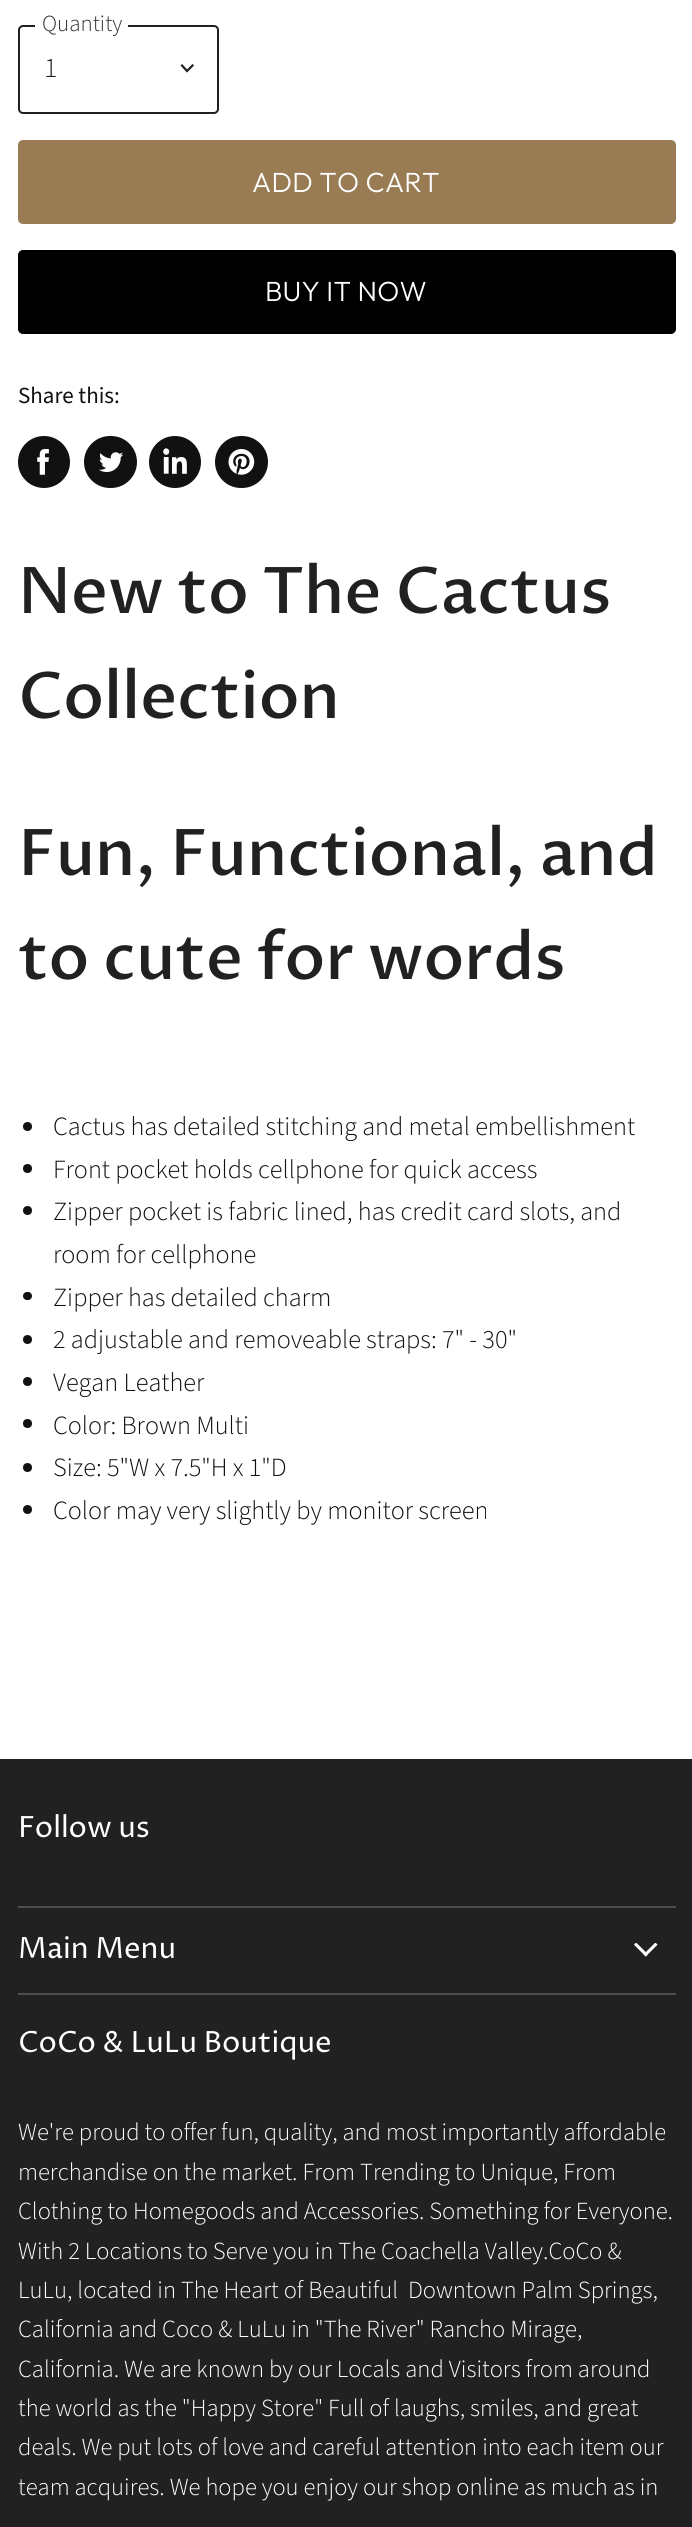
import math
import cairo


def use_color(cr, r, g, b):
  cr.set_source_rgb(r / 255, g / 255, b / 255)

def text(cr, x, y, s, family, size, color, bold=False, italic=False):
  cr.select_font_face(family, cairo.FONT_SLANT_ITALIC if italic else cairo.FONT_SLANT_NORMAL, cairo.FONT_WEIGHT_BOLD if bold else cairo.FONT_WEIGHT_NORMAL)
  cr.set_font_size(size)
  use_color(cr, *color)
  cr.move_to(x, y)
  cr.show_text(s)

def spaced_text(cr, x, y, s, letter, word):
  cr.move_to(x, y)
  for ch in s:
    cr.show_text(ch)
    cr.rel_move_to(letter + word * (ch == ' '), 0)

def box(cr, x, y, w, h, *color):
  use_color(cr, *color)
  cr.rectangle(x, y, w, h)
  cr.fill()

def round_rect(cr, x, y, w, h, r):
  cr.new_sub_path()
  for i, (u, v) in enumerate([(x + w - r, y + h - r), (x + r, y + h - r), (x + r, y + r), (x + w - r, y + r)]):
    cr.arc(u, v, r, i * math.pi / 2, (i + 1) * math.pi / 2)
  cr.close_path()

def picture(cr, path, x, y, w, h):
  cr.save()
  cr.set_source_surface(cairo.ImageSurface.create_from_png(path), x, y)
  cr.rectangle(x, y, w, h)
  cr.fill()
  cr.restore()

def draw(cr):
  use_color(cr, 255, 255, 255)
  cr.paint()
  round_rect(cr, 19, 26, 199, 87, 4)
  use_color(cr, 33, 33, 33)
  cr.stroke()
  box(cr, 35, 25, 93, 2, 255, 255, 255)
  cr.new_path()
  cr.move_to(187, 71)
  cr.line_to(192.5, 65.5)
  cr.move_to(187, 71)
  cr.line_to(182, 65.5)
  use_color(cr, 33, 33, 33)
  cr.set_line_width(2.2)
  cr.set_line_cap(cairo.LINE_CAP_SQUARE)
  cr.stroke()
  use_color(cr, 153, 124, 84)
  round_rect(cr, 19, 141, 656, 82, 4)
  cr.fill_preserve()
  cr.set_line_width(2)
  cr.set_line_cap(cairo.LINE_CAP_BUTT)
  cr.stroke()
  use_color(cr, 0, 0, 0)
  round_rect(cr, 19, 251, 656, 82, 4)
  cr.fill_preserve()
  cr.stroke()
  use_color(cr, 17, 17, 17)
  cr.arc(44, 462, 26, 0, 2 * math.pi)
  cr.fill()
  picture(cr, "img_01.png", 37, 449, 12, 26)
  round_rect(cr, 84, 436, 53, 52, 26)
  cr.fill()
  picture(cr, "img_02.png", 99, 452, 25, 20)
  cr.arc(175, 462, 26, 0, 2 * math.pi)
  cr.fill()
  picture(cr, "img_03.png", 163, 448, 24, 26)
  round_rect(cr, 215, 436, 53, 52, 26)
  cr.fill()
  picture(cr, "img_04.png", 228, 449, 27, 26)
  cr.arc(27.5, 1126.5, 4.5, 0, 2 * math.pi)
  cr.fill()
  cr.arc(27.5, 1168.5, 4.5, 0, 2 * math.pi)
  cr.fill()
  cr.arc(27.5, 1210.5, 4.5, 0, 2 * math.pi)
  cr.fill()
  round_rect(cr, 23, 1292, 9, 8, 4)
  cr.fill()
  cr.arc(27.5, 1339.5, 4.5, 0, 2 * math.pi)
  cr.fill()
  cr.arc(27.5, 1381.5, 4.5, 0, 2 * math.pi)
  cr.fill()
  cr.arc(27.5, 1423.5, 4.5, 0, 2 * math.pi)
  cr.fill()
  cr.arc(27.5, 1467.5, 4.5, 0, 2 * math.pi)
  cr.fill()
  cr.arc(27.5, 1509.5, 4.5, 0, 2 * math.pi)
  cr.fill()
  box(cr, 0, 1759, 692, 768, 33, 33, 33)
  box(cr, 18, 1906, 658, 2, 77, 77, 77)
  box(cr, 18, 1993, 658, 2, 77, 77, 77)
  picture(cr, "img_05.png", 634, 1943, 24, 14)
  text(cr, 42, 31, "Quantity", "Source Sans Pro Light", 23, (51, 51, 51))
  text(cr, 44, 77, "1", "Source Sans Pro Light", 28, (33, 33, 33))
  cr.select_font_face("Outfit Light")
  cr.set_font_size(27.75)
  use_color(cr, 255, 255, 255)
  spaced_text(cr, 252, 192, "ADD TO CART", 0.25, 0)
  spaced_text(cr, 265, 301, "BUY IT NOW", 0.25, 0)
  text(cr, 18, 403, "Share this:", "Source Sans Pro", 23, (17, 17, 17))
  text(cr, 18, 613, "New to The Cactus", "Proza Libre Medium", 64.25, (33, 33, 33))
  text(cr, 18, 718, "Collection", "Proza Libre Medium", 64.25, (33, 33, 33))
  text(cr, 18, 875, "Fun, Functional, and", "Proza Libre Medium", 64.25, (33, 33, 33))
  text(cr, 18, 979, "to cute for words", "Proza Libre Medium", 64.25, (33, 33, 33))
  text(cr, 53, 1135, "Cactus has detailed stitching and metal embellishment", "Source Sans Pro Light", 26.25, (17, 17, 17))
  text(cr, 53, 1178, "Front pocket holds cellphone for quick access", "Source Sans Pro Light", 26.25, (17, 17, 17))
  text(cr, 53, 1220, "Zipper pocket is fabric lined, has credit card slots, and", "Source Sans Pro Light", 26.25, (17, 17, 17))
  text(cr, 53, 1263, "room for cellphone", "Source Sans Pro Light", 26.25, (17, 17, 17))
  text(cr, 53, 1306, "Zipper has detailed charm", "Source Sans Pro Light", 26.25, (17, 17, 17))
  text(cr, 53, 1348, "2 adjustable and removeable straps: 7\" - 30\"", "Source Sans Pro Light", 26.25, (17, 17, 17))
  text(cr, 53, 1391, "Vegan Leather", "Source Sans Pro Light", 26.25, (17, 17, 17))
  text(cr, 53, 1434, "Color: Brown Multi", "Source Sans Pro Light", 26.25, (17, 17, 17))
  text(cr, 53, 1476, "Size: 5\"W x 7.5\"H x 1\"D", "Source Sans Pro Light", 26.25, (17, 17, 17))
  text(cr, 53, 1519, "Color may very slightly by monitor screen", "Source Sans Pro Light", 26.25, (17, 17, 17))
  text(cr, 18, 1837, "Follow us", "Proza Libre", 29.25, (255, 255, 255))
  text(cr, 18, 1958, "Main Menu", "Proza Libre", 29.25, (255, 255, 255))
  text(cr, 18, 2052, "CoCo & LuLu Boutique", "Proza Libre", 29.25, (255, 255, 255))
  text(cr, 18, 2140, "We're proud to offer fun, quality, and most importantly affordable", "Source Sans Pro Light", 24.6, (255, 255, 255))
  text(cr, 18, 2180, "merchandise on the market. From Trending to Unique, From", "Source Sans Pro Light", 24.6, (255, 255, 255))
  text(cr, 18, 2219, "Clothing to Homegoods and Accessories. Something for Everyone.", "Source Sans Pro Light", 24.6, (255, 255, 255))
  text(cr, 18, 2259, "With 2 Locations to Serve you in The Coachella Valley.CoCo &", "Source Sans Pro Light", 24.6, (255, 255, 255))
  text(cr, 18, 2298, "LuLu, located in The Heart of Beautiful  Downtown Palm Springs,", "Source Sans Pro Light", 24.6, (255, 255, 255))
  text(cr, 18, 2337, "California and Coco & LuLu in \"The River\" Rancho Mirage,", "Source Sans Pro Light", 24.6, (255, 255, 255))
  text(cr, 18, 2377, "California. We are known by our Locals and Visitors from around", "Source Sans Pro Light", 24.6, (255, 255, 255))
  text(cr, 18, 2416, "the world as the \"Happy Store\" Full of laughs, smiles, and great", "Source Sans Pro Light", 24.6, (255, 255, 255))
  text(cr, 18, 2455, "deals. We put lots of love and careful attention into each item our", "Source Sans Pro Light", 24.6, (255, 255, 255))
  text(cr, 18, 2495, "team acquires. We hope you enjoy our shop online as much as in", "Source Sans Pro Light", 24.6, (255, 255, 255))


surface = cairo.ImageSurface(cairo.FORMAT_RGB24, 692, 2527)
cr = cairo.Context(surface)
options = cairo.FontOptions()
options.set_hint_metrics(cairo.HINT_METRICS_OFF)
options.set_hint_style(cairo.HINT_STYLE_NONE)
cr.set_font_options(options)
cr.set_miter_limit(4)
draw(cr)
surface.write_to_png("out.png")
